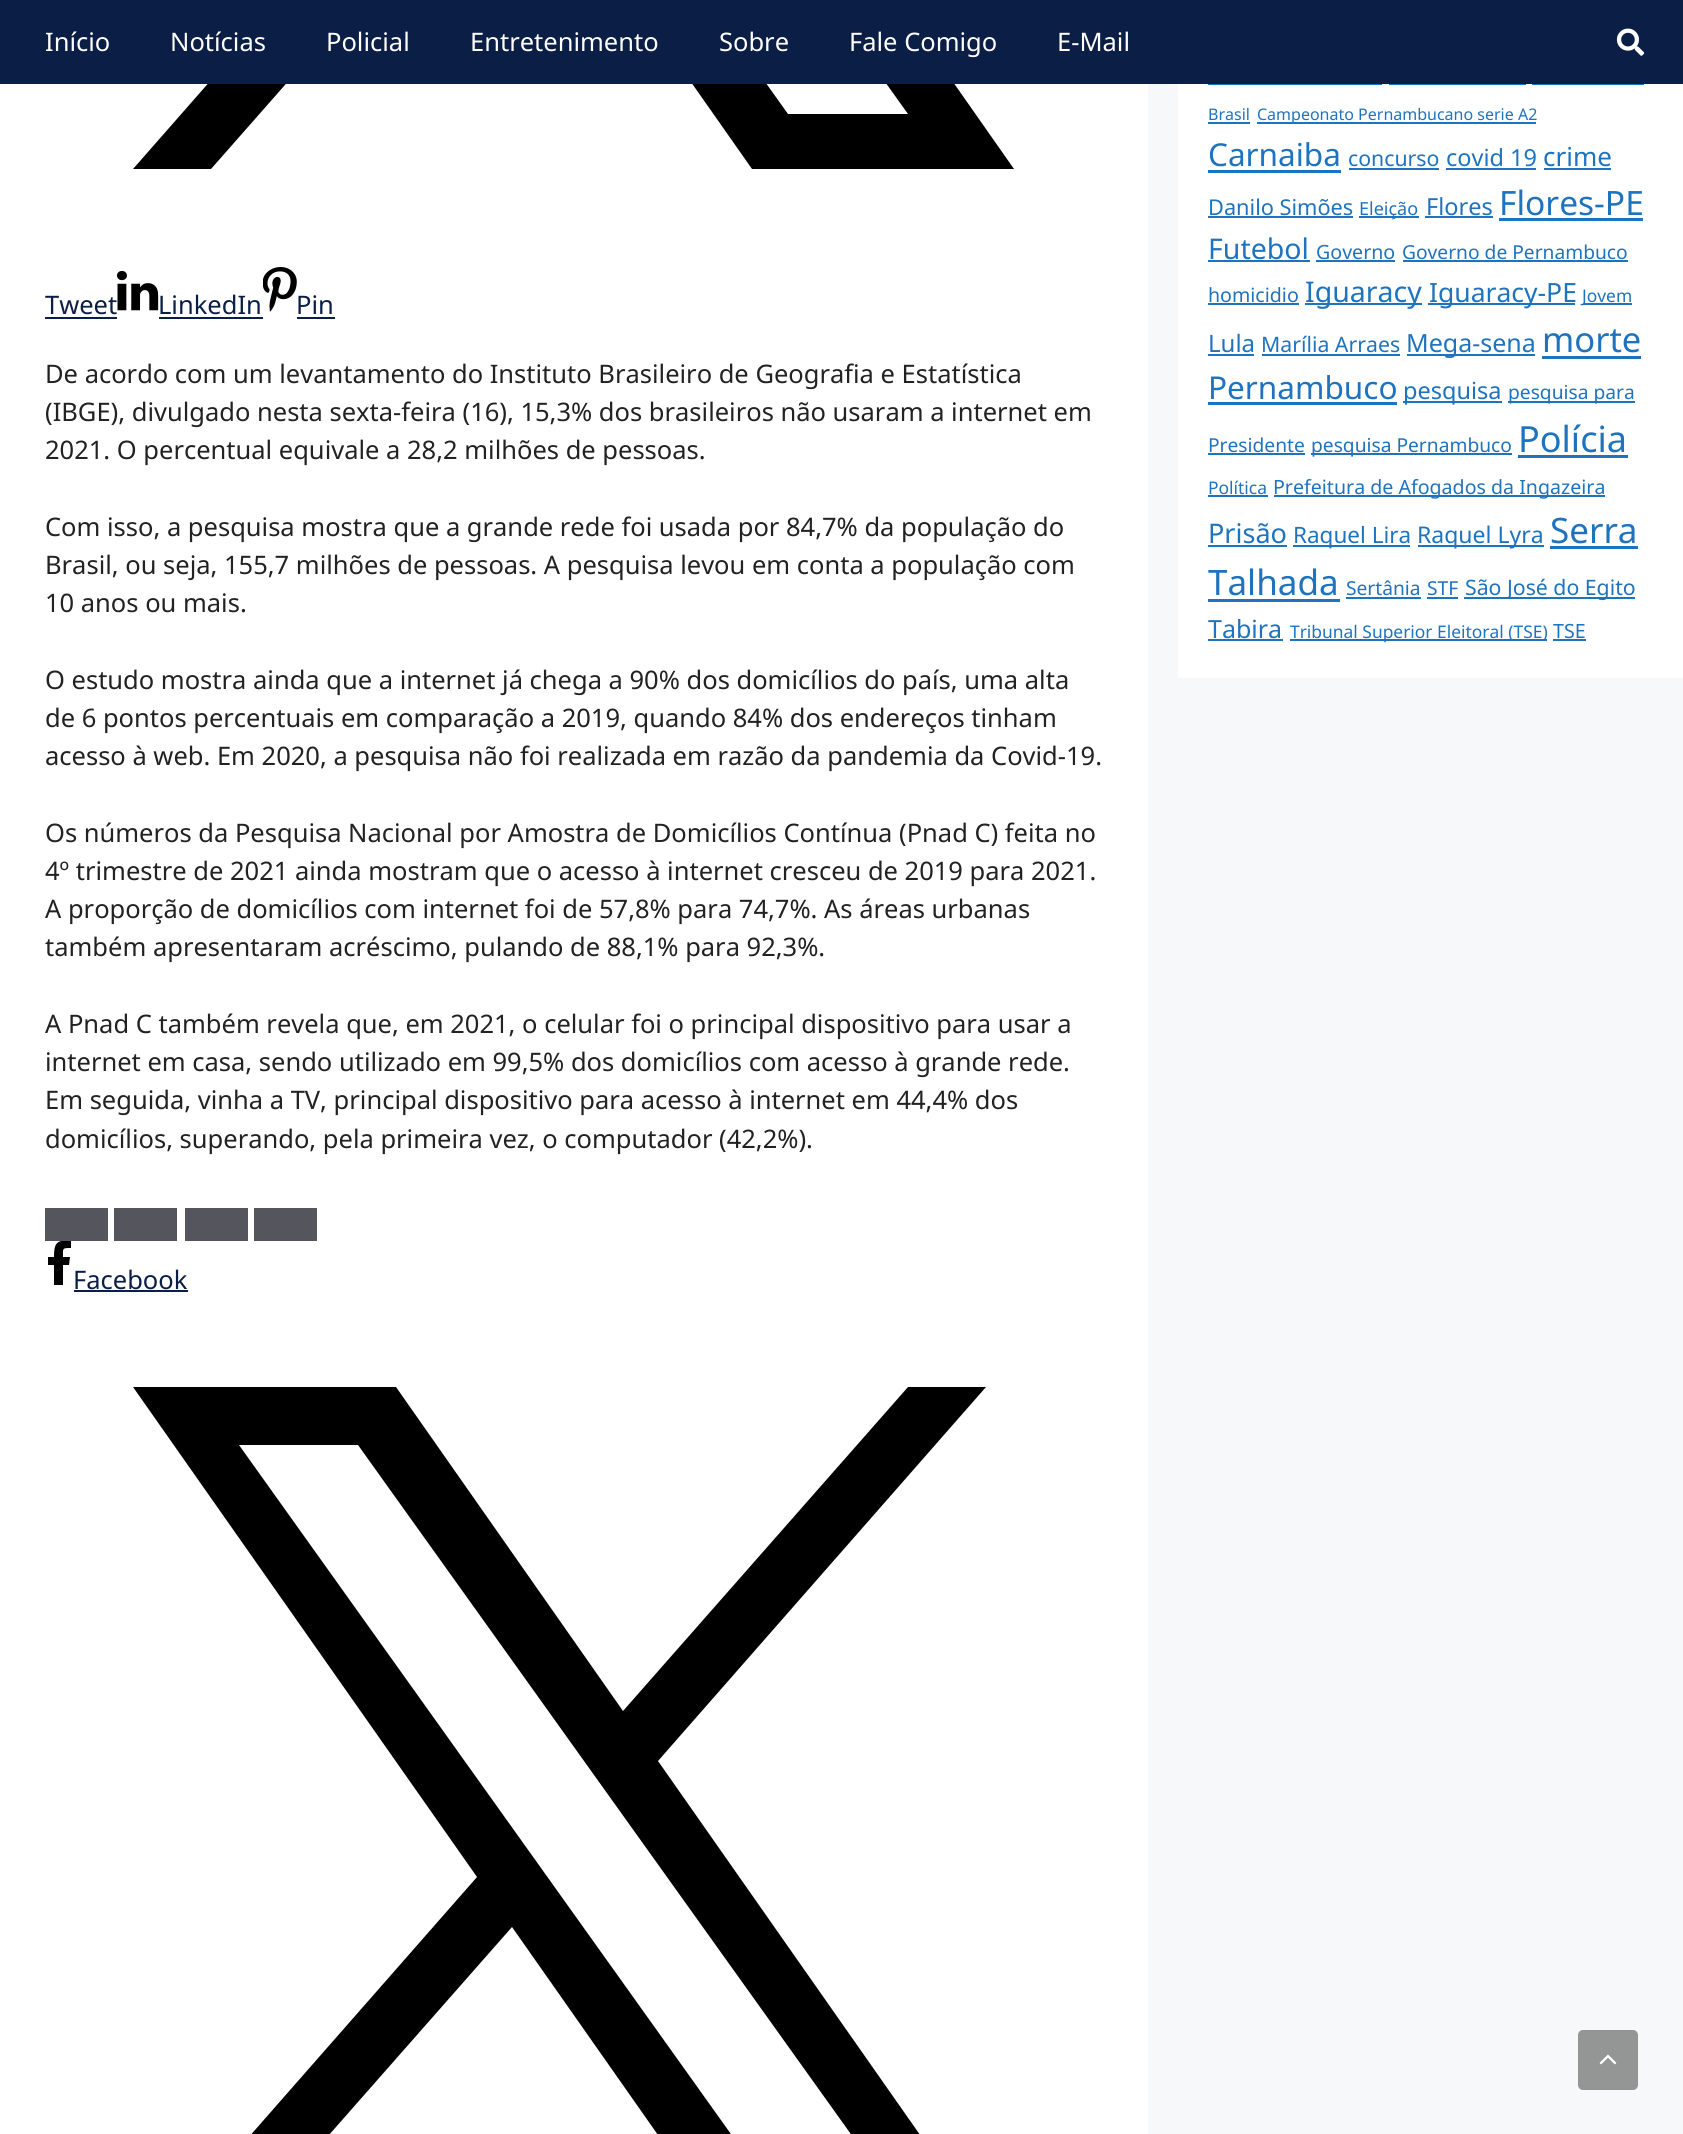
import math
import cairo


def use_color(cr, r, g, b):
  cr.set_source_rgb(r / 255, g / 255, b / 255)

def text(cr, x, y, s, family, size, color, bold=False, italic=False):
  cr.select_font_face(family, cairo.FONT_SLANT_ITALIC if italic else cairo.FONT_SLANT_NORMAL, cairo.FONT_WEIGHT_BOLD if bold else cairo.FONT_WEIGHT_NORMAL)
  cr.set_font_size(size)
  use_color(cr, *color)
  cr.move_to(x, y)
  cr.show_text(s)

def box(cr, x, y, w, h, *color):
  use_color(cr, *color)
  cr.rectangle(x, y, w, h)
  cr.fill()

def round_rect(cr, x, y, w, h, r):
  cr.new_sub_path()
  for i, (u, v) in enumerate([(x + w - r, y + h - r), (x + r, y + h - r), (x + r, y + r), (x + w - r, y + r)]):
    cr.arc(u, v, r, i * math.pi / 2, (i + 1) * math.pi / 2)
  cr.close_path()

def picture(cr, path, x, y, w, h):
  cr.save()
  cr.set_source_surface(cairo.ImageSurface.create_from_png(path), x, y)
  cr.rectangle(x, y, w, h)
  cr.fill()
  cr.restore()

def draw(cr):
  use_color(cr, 247, 248, 249)
  cr.paint()
  box(cr, 0, 84, 1148, 2050, 255, 255, 255)
  use_color(cr, 0, 0, 0)
  cr.new_path()
  cr.move_to(658, -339)
  cr.line_to(986, -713)
  cr.line_to(908, -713)
  cr.line_to(623, -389)
  cr.line_to(396, -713)
  cr.line_to(133, -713)
  cr.line_to(477, -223)
  cr.line_to(133, 169)
  cr.line_to(211, 169)
  cr.line_to(512, -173)
  cr.line_to(752, 169)
  cr.line_to(1014, 169)
  cr.close_path()
  cr.move_to(551, -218)
  cr.line_to(239, -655)
  cr.line_to(358, -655)
  cr.line_to(908, 114)
  cr.line_to(788, 114)
  cr.close_path()
  cr.fill()
  box(cr, 0, 0, 1683, 84, 11, 30, 70)
  picture(cr, "img_01.png", 1616, 28, 29, 28)
  box(cr, 45, 317, 72, 2, 11, 30, 70)
  picture(cr, "img_02.png", 117, 271, 42, 40)
  box(cr, 159, 317, 104, 2, 11, 30, 70)
  picture(cr, "img_03.png", 263, 267, 34, 45)
  box(cr, 297, 317, 38, 2, 11, 30, 70)
  box(cr, 45, 1208, 63, 33, 85, 85, 94)
  box(cr, 114, 1208, 63, 33, 85, 85, 94)
  box(cr, 185, 1208, 63, 33, 85, 85, 94)
  box(cr, 254, 1208, 63, 33, 85, 85, 94)
  box(cr, 74, 1290, 114, 2, 11, 30, 70)
  cr.save()
  cr.rectangle(45, 1241, 29, 48)
  cr.clip()
  use_color(cr, 0, 0, 0)
  cr.new_path()
  cr.move_to(71, 1241)
  cr.line_to(71, 1248)
  cr.curve_to(62, 1248, 63, 1248, 63, 1257)
  cr.line_to(70, 1257)
  cr.line_to(69, 1265)
  cr.line_to(63, 1265)
  cr.line_to(63, 1285)
  cr.line_to(54, 1285)
  cr.line_to(54, 1265)
  cr.line_to(48, 1265)
  cr.line_to(48, 1257)
  cr.line_to(54, 1257)
  cr.curve_to(54, 1244, 56, 1239, 71, 1241)
  cr.close_path()
  cr.fill()
  cr.restore()
  use_color(cr, 0, 0, 0)
  cr.new_path()
  cr.move_to(658, 1761)
  cr.line_to(986, 1387)
  cr.line_to(908, 1387)
  cr.line_to(623, 1711)
  cr.line_to(396, 1387)
  cr.line_to(133, 1387)
  cr.line_to(477, 1877)
  cr.line_to(133, 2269)
  cr.line_to(211, 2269)
  cr.line_to(512, 1927)
  cr.line_to(752, 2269)
  cr.line_to(1014, 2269)
  cr.close_path()
  cr.move_to(551, 1882)
  cr.line_to(239, 1445)
  cr.line_to(358, 1445)
  cr.line_to(908, 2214)
  cr.line_to(788, 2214)
  cr.close_path()
  cr.fill()
  box(cr, 1178, 84, 505, 594, 255, 255, 255)
  box(cr, 1208, 84, 174, 1, 30, 115, 190)
  box(cr, 1389, 84, 137, 1, 30, 115, 190)
  box(cr, 1532, 84, 112, 1, 30, 115, 190)
  box(cr, 1208, 122, 42, 2, 30, 115, 190)
  box(cr, 1257, 122, 279, 2, 30, 115, 190)
  box(cr, 1208, 170, 133, 3, 30, 115, 190)
  box(cr, 1349, 168, 90, 2, 30, 115, 190)
  box(cr, 1446, 168, 90, 2, 30, 115, 190)
  box(cr, 1544, 168, 67, 2, 30, 115, 190)
  box(cr, 1208, 216, 145, 2, 30, 115, 190)
  box(cr, 1359, 216, 60, 2, 30, 115, 190)
  box(cr, 1425, 216, 68, 2, 30, 115, 190)
  box(cr, 1499, 218, 144, 3, 30, 115, 190)
  box(cr, 1208, 260, 102, 2, 30, 115, 190)
  box(cr, 1316, 260, 79, 2, 30, 115, 190)
  box(cr, 1403, 260, 225, 2, 30, 115, 190)
  box(cr, 1208, 303, 91, 2, 30, 115, 190)
  box(cr, 1305, 303, 117, 2, 30, 115, 190)
  box(cr, 1428, 303, 147, 2, 30, 115, 190)
  box(cr, 1583, 303, 49, 2, 30, 115, 190)
  box(cr, 1208, 354, 46, 2, 30, 115, 190)
  box(cr, 1262, 354, 138, 2, 30, 115, 190)
  box(cr, 1407, 354, 128, 2, 30, 115, 190)
  box(cr, 1542, 356, 99, 3, 30, 115, 190)
  box(cr, 1208, 402, 189, 3, 30, 115, 190)
  box(cr, 1403, 401, 99, 2, 30, 115, 190)
  box(cr, 1508, 401, 127, 2, 30, 115, 190)
  box(cr, 1208, 453, 97, 2, 30, 115, 190)
  box(cr, 1311, 453, 201, 2, 30, 115, 190)
  box(cr, 1518, 455, 110, 3, 30, 115, 190)
  box(cr, 1208, 495, 60, 2, 30, 115, 190)
  box(cr, 1274, 495, 331, 2, 30, 115, 190)
  box(cr, 1208, 545, 79, 2, 30, 115, 190)
  box(cr, 1293, 545, 117, 2, 30, 115, 190)
  box(cr, 1418, 545, 126, 2, 30, 115, 190)
  box(cr, 1550, 546, 88, 3, 30, 115, 190)
  box(cr, 1208, 599, 132, 3, 30, 115, 190)
  box(cr, 1346, 597, 75, 2, 30, 115, 190)
  box(cr, 1427, 597, 31, 2, 30, 115, 190)
  box(cr, 1464, 597, 171, 2, 30, 115, 190)
  box(cr, 1208, 639, 75, 2, 30, 115, 190)
  box(cr, 1290, 639, 257, 2, 30, 115, 190)
  box(cr, 1553, 639, 33, 2, 30, 115, 190)
  use_color(cr, 148, 149, 149)
  round_rect(cr, 1578, 2030, 60, 60, 5)
  cr.fill()
  picture(cr, "img_04.png", 1599, 2054, 18, 11)
  text(cr, 45, 51, "Início", "Noto Sans", 25.5, (255, 255, 255))
  text(cr, 170, 51, "Notícias", "Noto Sans", 25.5, (255, 255, 255))
  text(cr, 326, 51, "Policial", "Noto Sans", 25.5, (255, 255, 255))
  text(cr, 470, 51, "Entretenimento", "Noto Sans", 25.5, (255, 255, 255))
  text(cr, 719, 51, "Sobre", "Noto Sans", 25.5, (255, 255, 255))
  text(cr, 849, 51, "Fale Comigo", "Noto Sans", 25.5, (255, 255, 255))
  text(cr, 1057, 51, "E-Mail", "Noto Sans", 25.5, (255, 255, 255))
  text(cr, 45, 314, "Tweet", "Noto Sans", 25.5, (11, 30, 70))
  text(cr, 158, 314, "LinkedIn", "Noto Sans", 25.5, (11, 30, 70))
  text(cr, 296, 314, "Pin", "Noto Sans", 25.5, (11, 30, 70))
  text(cr, 45, 383, "De acordo com um levantamento do Instituto Brasileiro de Geografia e Estatística", "Noto Sans", 25.5, (34, 34, 34))
  text(cr, 45, 421, "(IBGE), divulgado nesta sexta-feira (16), 15,3% dos brasileiros não usaram a internet em", "Noto Sans", 25.5, (34, 34, 34))
  text(cr, 45, 459, "2021. O percentual equivale a 28,2 milhões de pessoas.", "Noto Sans", 25.5, (34, 34, 34))
  text(cr, 45, 536, "Com isso, a pesquisa mostra que a grande rede foi usada por 84,7% da população do", "Noto Sans", 25.5, (34, 34, 34))
  text(cr, 45, 574, "Brasil, ou seja, 155,7 milhões de pessoas. A pesquisa levou em conta a população com", "Noto Sans", 25.5, (34, 34, 34))
  text(cr, 45, 612, "10 anos ou mais.", "Noto Sans", 25.5, (34, 34, 34))
  text(cr, 45, 689, "O estudo mostra ainda que a internet já chega a 90% dos domicílios do país, uma alta", "Noto Sans", 25.5, (34, 34, 34))
  text(cr, 45, 727, "de 6 pontos percentuais em comparação a 2019, quando 84% dos endereços tinham", "Noto Sans", 25.5, (34, 34, 34))
  text(cr, 45, 765, "acesso à web. Em 2020, a pesquisa não foi realizada em razão da pandemia da Covid-19.", "Noto Sans", 25.5, (34, 34, 34))
  text(cr, 45, 842, "Os números da Pesquisa Nacional por Amostra de Domicílios Contínua (Pnad C) feita no", "Noto Sans", 25.5, (34, 34, 34))
  text(cr, 45, 880, "4º trimestre de 2021 ainda mostram que o acesso à internet cresceu de 2019 para 2021.", "Noto Sans", 25.5, (34, 34, 34))
  text(cr, 45, 918, "A proporção de domicílios com internet foi de 57,8% para 74,7%. As áreas urbanas", "Noto Sans", 25.5, (34, 34, 34))
  text(cr, 45, 956, "também apresentaram acréscimo, pulando de 88,1% para 92,3%.", "Noto Sans", 25.5, (34, 34, 34))
  text(cr, 45, 1033, "A Pnad C também revela que, em 2021, o celular foi o principal dispositivo para usar a", "Noto Sans", 25.5, (34, 34, 34))
  text(cr, 45, 1071, "internet em casa, sendo utilizado em 99,5% dos domicílios com acesso à grande rede.", "Noto Sans", 25.5, (34, 34, 34))
  text(cr, 45, 1109, "Em seguida, vinha a TV, principal dispositivo para acesso à internet em 44,4% dos", "Noto Sans", 25.5, (34, 34, 34))
  text(cr, 45, 1148, "domicílios, superando, pela primeira vez, o computador (42,2%).", "Noto Sans", 25.5, (34, 34, 34))
  text(cr, 73, 1289, "Facebook", "Noto Sans", 25.5, (11, 30, 70))
  text(cr, 1208, 120, "Brasil", "Noto Sans", 16, (30, 115, 190))
  text(cr, 1257, 120, "Campeonato Pernambucano serie A2", "Noto Sans", 16, (30, 115, 190))
  text(cr, 1208, 166, "Carnaiba", "Noto Sans", 31.5, (30, 115, 190))
  text(cr, 1348, 166, "concurso", "Noto Sans", 21.25, (30, 115, 190))
  text(cr, 1446, 166, "covid 19", "Noto Sans", 23.5, (30, 115, 190))
  text(cr, 1543, 166, "crime", "Noto Sans", 26, (30, 115, 190))
  text(cr, 1208, 215, "Danilo Simões", "Noto Sans", 21.75, (30, 115, 190))
  text(cr, 1359, 215, "Eleição", "Noto Sans", 18, (30, 115, 190))
  text(cr, 1426, 215, "Flores", "Noto Sans", 23.5, (30, 115, 190))
  text(cr, 1499, 215, "Flores-PE", "Noto Sans", 33.5, (30, 115, 190))
  text(cr, 1208, 259, "Futebol", "Noto Sans", 28.5, (30, 115, 190))
  text(cr, 1316, 259, "Governo", "Noto Sans", 19.6, (30, 115, 190))
  text(cr, 1402, 259, "Governo de Pernambuco", "Noto Sans", 19.2, (30, 115, 190))
  text(cr, 1208, 302, "homicidio", "Noto Sans", 19.6, (30, 115, 190))
  text(cr, 1305, 302, "Iguaracy", "Noto Sans", 28.5, (30, 115, 190))
  text(cr, 1429, 302, "Iguaracy-PE", "Noto Sans", 26.5, (30, 115, 190))
  text(cr, 1582, 302, "Jovem", "Noto Sans", 17.4, (30, 115, 190))
  text(cr, 1208, 352, "Lula", "Noto Sans", 24, (30, 115, 190))
  text(cr, 1261, 352, "Marília Arraes", "Noto Sans", 21.25, (30, 115, 190))
  text(cr, 1406, 352, "Mega-sena", "Noto Sans", 25, (30, 115, 190))
  text(cr, 1542, 352, "morte", "Noto Sans", 34.5, (30, 115, 190))
  text(cr, 1208, 399, "Pernambuco", "Noto Sans", 31.5, (30, 115, 190))
  text(cr, 1403, 399, "pesquisa", "Noto Sans", 23.5, (30, 115, 190))
  text(cr, 1508, 399, "pesquisa para", "Noto Sans", 19.2, (30, 115, 190))
  text(cr, 1208, 452, "Presidente", "Noto Sans", 19.2, (30, 115, 190))
  text(cr, 1311, 452, "pesquisa Pernambuco", "Noto Sans", 19.2, (30, 115, 190))
  text(cr, 1518, 452, "Polícia", "Noto Sans", 36, (30, 115, 190))
  text(cr, 1208, 494, "Política", "Noto Sans", 17.4, (30, 115, 190))
  text(cr, 1273, 494, "Prefeitura de Afogados da Ingazeira", "Noto Sans", 19.6, (30, 115, 190))
  text(cr, 1208, 543, "Prisão", "Noto Sans", 27, (30, 115, 190))
  text(cr, 1293, 543, "Raquel Lira", "Noto Sans", 22.5, (30, 115, 190))
  text(cr, 1417, 543, "Raquel Lyra", "Noto Sans", 23, (30, 115, 190))
  text(cr, 1550, 543, "Serra", "Noto Sans", 35, (30, 115, 190))
  text(cr, 1208, 595, "Talhada", "Noto Sans", 35, (30, 115, 190))
  text(cr, 1346, 595, "Sertânia", "Noto Sans", 19.2, (30, 115, 190))
  text(cr, 1427, 595, "STF", "Noto Sans", 19.2, (30, 115, 190))
  text(cr, 1465, 595, "São José do Egito", "Noto Sans", 21.25, (30, 115, 190))
  text(cr, 1208, 638, "Tabira", "Noto Sans", 25, (30, 115, 190))
  text(cr, 1290, 638, "Tribunal Superior Eleitoral (TSE)", "Noto Sans", 17.4, (30, 115, 190))
  text(cr, 1553, 638, "TSE", "Noto Sans", 19.6, (30, 115, 190))


surface = cairo.ImageSurface(cairo.FORMAT_RGB24, 1683, 2134)
cr = cairo.Context(surface)
options = cairo.FontOptions()
options.set_hint_metrics(cairo.HINT_METRICS_OFF)
options.set_hint_style(cairo.HINT_STYLE_NONE)
cr.set_font_options(options)
cr.set_miter_limit(4)
draw(cr)
surface.write_to_png("out.png")
